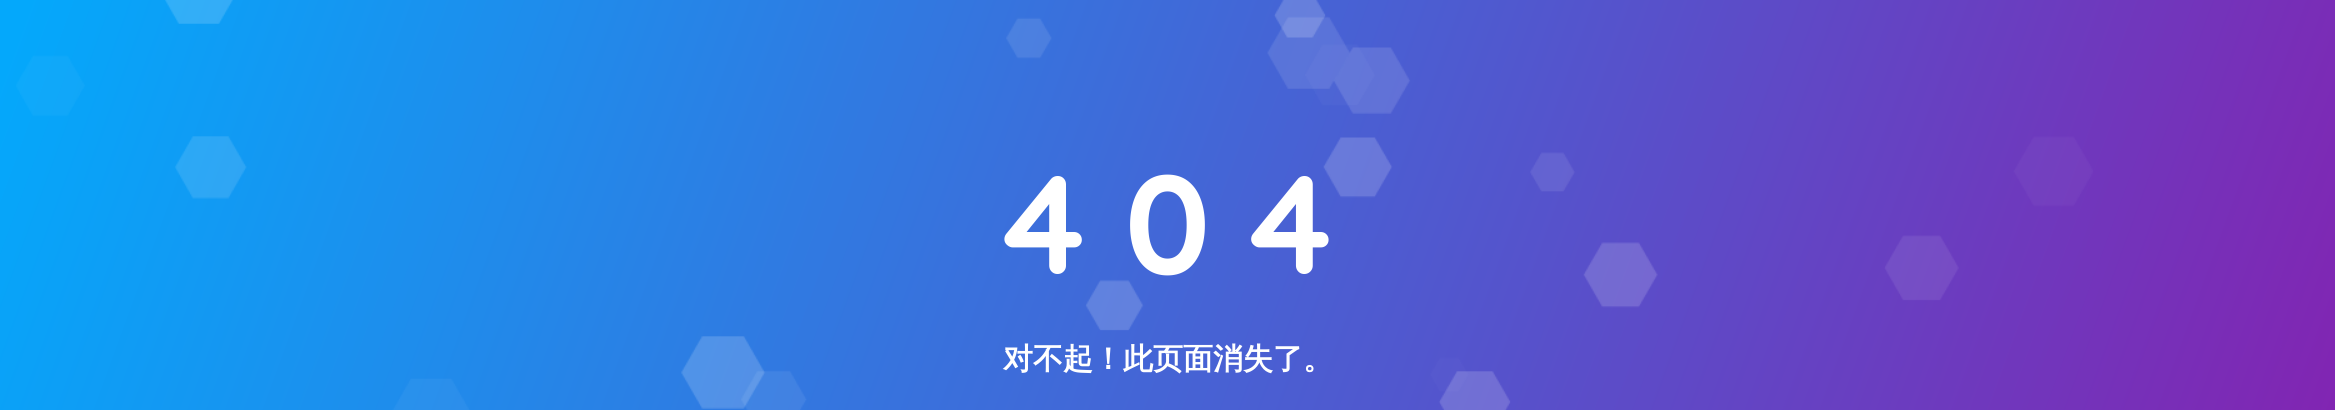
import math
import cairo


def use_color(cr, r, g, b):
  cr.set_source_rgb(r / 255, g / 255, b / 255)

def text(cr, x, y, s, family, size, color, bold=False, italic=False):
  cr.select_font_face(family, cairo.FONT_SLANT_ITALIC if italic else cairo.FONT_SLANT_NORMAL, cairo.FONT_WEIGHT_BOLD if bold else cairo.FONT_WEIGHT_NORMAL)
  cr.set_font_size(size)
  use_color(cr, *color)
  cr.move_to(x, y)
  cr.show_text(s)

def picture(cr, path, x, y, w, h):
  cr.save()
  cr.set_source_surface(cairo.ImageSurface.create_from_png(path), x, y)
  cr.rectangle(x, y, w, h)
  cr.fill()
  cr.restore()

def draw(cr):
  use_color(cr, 255, 255, 255)
  cr.paint()
  gradient = cairo.LinearGradient(22, -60, 2313, 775)
  gradient.add_color_stop_rgba(0.01, 0.016, 0.659, 0.984, 1)
  gradient.add_color_stop_rgba(1, 0.529, 0.122, 0.686, 1)
  cr.set_source(gradient)
  cr.rectangle(0, 0, 2335, 410)
  cr.fill()
  picture(cr, "img_01.png", 16, 0, 2077, 410)
  text(cr, 1003, 274, "4 0 4", "Quicksand", 140, (255, 255, 255), bold=True)
  text(cr, 1003, 369, "对不起！此页面消失了。", "WenQuanYi Zen Hei", 30, (255, 255, 255), bold=True)


surface = cairo.ImageSurface(cairo.FORMAT_RGB24, 2335, 410)
cr = cairo.Context(surface)
options = cairo.FontOptions()
options.set_hint_metrics(cairo.HINT_METRICS_OFF)
options.set_hint_style(cairo.HINT_STYLE_NONE)
cr.set_font_options(options)
cr.set_miter_limit(4)
draw(cr)
surface.write_to_png("out.png")
